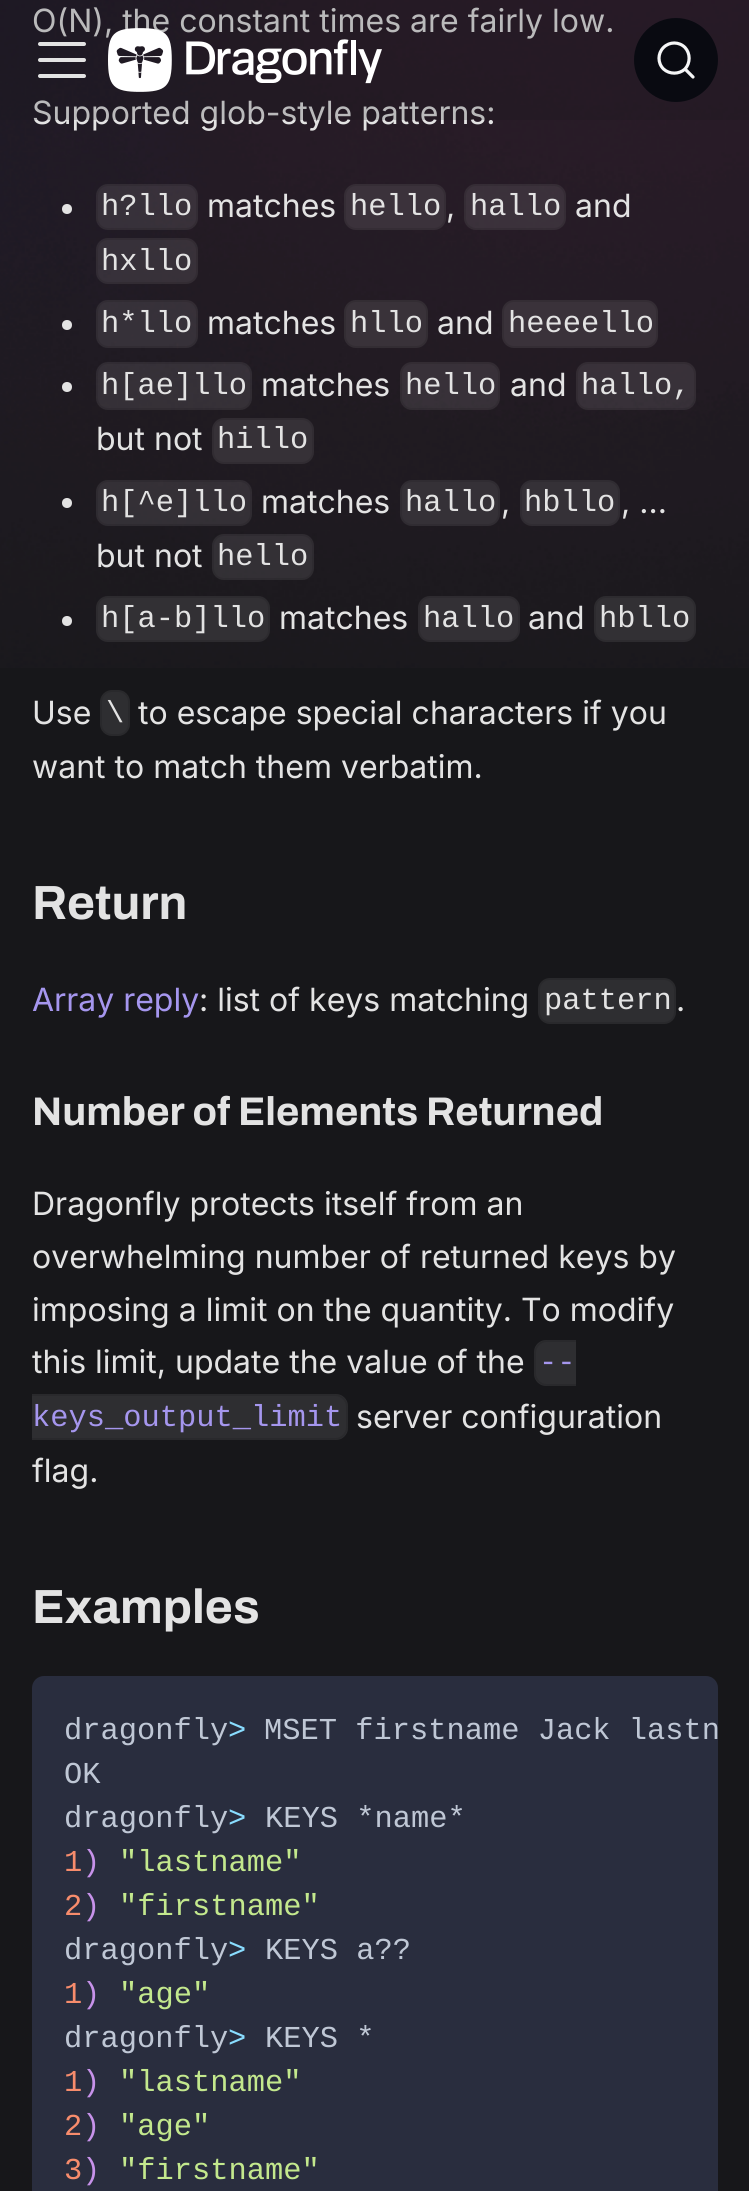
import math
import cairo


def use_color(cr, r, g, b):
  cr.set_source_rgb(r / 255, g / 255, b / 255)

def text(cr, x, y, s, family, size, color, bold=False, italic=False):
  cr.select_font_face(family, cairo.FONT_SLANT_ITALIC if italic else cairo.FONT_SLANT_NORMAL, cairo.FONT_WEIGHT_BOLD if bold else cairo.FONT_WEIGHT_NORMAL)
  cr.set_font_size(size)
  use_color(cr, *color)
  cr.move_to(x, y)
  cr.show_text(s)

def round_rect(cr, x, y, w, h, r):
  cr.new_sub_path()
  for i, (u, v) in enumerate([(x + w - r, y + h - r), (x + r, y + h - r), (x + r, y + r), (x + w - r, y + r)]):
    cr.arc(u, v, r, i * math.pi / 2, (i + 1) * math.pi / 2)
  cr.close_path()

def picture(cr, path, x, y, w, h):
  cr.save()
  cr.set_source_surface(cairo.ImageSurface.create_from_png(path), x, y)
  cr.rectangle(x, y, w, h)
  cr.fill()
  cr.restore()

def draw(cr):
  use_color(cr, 23, 23, 26)
  cr.paint()
  picture(cr, "img_01.png", 0, 0, 749, 668)
  use_color(cr, 227, 227, 227)
  cr.arc(67, 209, 5, 0, 2 * math.pi)
  cr.fill()
  cr.set_source_rgba(1, 1, 1, 0.1)
  round_rect(cr, 96, 184, 102, 46, 12)
  cr.fill()
  round_rect(cr, 97, 185, 100, 44, 11)
  cr.set_source_rgba(0, 0, 0, 0.1)
  cr.stroke()
  use_color(cr, 59, 50, 59)
  round_rect(cr, 344, 184, 102, 46, 12)
  cr.fill()
  round_rect(cr, 345, 185, 100, 44, 11)
  cr.set_source_rgba(0, 0, 0, 0.1)
  cr.stroke()
  cr.set_source_rgba(1, 1, 1, 0.1)
  round_rect(cr, 464, 184, 102, 46, 12)
  cr.fill()
  round_rect(cr, 465, 185, 100, 44, 11)
  cr.set_source_rgba(0, 0, 0, 0.1)
  cr.stroke()
  cr.set_source_rgba(1, 1, 1, 0.1)
  round_rect(cr, 96, 238, 102, 46, 12)
  cr.fill()
  round_rect(cr, 97, 239, 100, 44, 11)
  cr.set_source_rgba(0, 0, 0, 0.1)
  cr.stroke()
  use_color(cr, 227, 227, 227)
  cr.arc(67, 325, 5, 0, 2 * math.pi)
  cr.fill()
  cr.set_source_rgba(1, 1, 1, 0.1)
  round_rect(cr, 96, 300, 102, 48, 12)
  cr.fill()
  round_rect(cr, 97, 301, 100, 46, 11)
  cr.set_source_rgba(0, 0, 0, 0.1)
  cr.stroke()
  use_color(cr, 57, 50, 57)
  round_rect(cr, 344, 300, 84, 48, 12)
  cr.fill()
  round_rect(cr, 345, 301, 82, 46, 11)
  cr.set_source_rgba(0, 0, 0, 0.1)
  cr.stroke()
  use_color(cr, 58, 50, 58)
  round_rect(cr, 502, 300, 156, 48, 12)
  cr.fill()
  round_rect(cr, 503, 301, 154, 46, 11)
  cr.set_source_rgba(0, 0, 0, 0.1)
  cr.stroke()
  use_color(cr, 227, 227, 227)
  cr.arc(67, 387, 5, 0, 2 * math.pi)
  cr.fill()
  cr.set_source_rgba(1, 1, 1, 0.1)
  round_rect(cr, 96, 362, 156, 48, 12)
  cr.fill()
  round_rect(cr, 97, 363, 154, 46, 11)
  cr.set_source_rgba(0, 0, 0, 0.1)
  cr.stroke()
  cr.set_source_rgba(1, 1, 1, 0.1)
  round_rect(cr, 400, 362, 100, 48, 12)
  cr.fill()
  round_rect(cr, 401, 363, 98, 46, 11)
  cr.set_source_rgba(0, 0, 0, 0.1)
  cr.stroke()
  cr.set_source_rgba(1, 1, 1, 0.1)
  round_rect(cr, 576, 362, 120, 48, 12)
  cr.fill()
  round_rect(cr, 577, 363, 118, 46, 11)
  cr.set_source_rgba(0, 0, 0, 0.1)
  cr.stroke()
  use_color(cr, 54, 49, 55)
  round_rect(cr, 212, 418, 102, 46, 12)
  cr.fill()
  round_rect(cr, 213, 419, 100, 44, 11)
  cr.set_source_rgba(0, 0, 0, 0.1)
  cr.stroke()
  use_color(cr, 227, 227, 227)
  cr.arc(67, 503, 5, 0, 2 * math.pi)
  cr.fill()
  cr.set_source_rgba(1, 1, 1, 0.1)
  round_rect(cr, 96, 480, 156, 46, 12)
  cr.fill()
  round_rect(cr, 97, 481, 154, 44, 11)
  cr.set_source_rgba(0, 0, 0, 0.1)
  cr.stroke()
  use_color(cr, 53, 49, 55)
  round_rect(cr, 400, 480, 100, 46, 12)
  cr.fill()
  round_rect(cr, 401, 481, 98, 44, 11)
  cr.set_source_rgba(0, 0, 0, 0.1)
  cr.stroke()
  use_color(cr, 53, 49, 55)
  round_rect(cr, 520, 480, 100, 46, 12)
  cr.fill()
  round_rect(cr, 521, 481, 98, 44, 11)
  cr.set_source_rgba(0, 0, 0, 0.1)
  cr.stroke()
  cr.set_source_rgba(1, 1, 1, 0.1)
  round_rect(cr, 212, 534, 102, 46, 12)
  cr.fill()
  round_rect(cr, 213, 535, 100, 44, 11)
  cr.set_source_rgba(0, 0, 0, 0.1)
  cr.stroke()
  use_color(cr, 227, 227, 227)
  cr.arc(67, 621, 5, 0, 2 * math.pi)
  cr.fill()
  use_color(cr, 50, 48, 52)
  round_rect(cr, 96, 596, 174, 46, 12)
  cr.fill()
  round_rect(cr, 97, 597, 172, 44, 11)
  cr.set_source_rgba(0, 0, 0, 0.1)
  cr.stroke()
  use_color(cr, 51, 48, 53)
  round_rect(cr, 418, 596, 102, 46, 12)
  cr.fill()
  round_rect(cr, 419, 597, 100, 44, 11)
  cr.set_source_rgba(0, 0, 0, 0.1)
  cr.stroke()
  use_color(cr, 50, 48, 52)
  round_rect(cr, 594, 596, 102, 46, 12)
  cr.fill()
  round_rect(cr, 595, 597, 100, 44, 11)
  cr.set_source_rgba(0, 0, 0, 0.1)
  cr.stroke()
  use_color(cr, 46, 46, 49)
  round_rect(cr, 100, 690, 30, 46, 12)
  cr.fill()
  round_rect(cr, 101, 691, 28, 44, 11)
  cr.set_source_rgba(0, 0, 0, 0.1)
  cr.stroke()
  use_color(cr, 46, 46, 49)
  round_rect(cr, 538, 978, 138, 46, 12)
  cr.fill()
  round_rect(cr, 539, 979, 136, 44, 11)
  cr.set_source_rgba(0, 0, 0, 0.1)
  cr.stroke()
  use_color(cr, 46, 46, 49)
  cr.new_path()
  cr.move_to(546, 1340)
  cr.line_to(576, 1340)
  cr.line_to(576, 1386)
  cr.line_to(546, 1386)
  cr.curve_to(539.5, 1386, 534, 1380.5, 534, 1374)
  cr.line_to(534, 1352)
  cr.curve_to(534, 1345.5, 539.5, 1340, 546, 1340)
  cr.close_path()
  cr.fill()
  cr.set_source_rgba(0, 0, 0, 0.1)
  cr.set_fill_rule(cairo.FILL_RULE_EVEN_ODD)
  cr.new_path()
  cr.move_to(547, 1340)
  cr.line_to(576, 1340)
  cr.line_to(576, 1386)
  cr.line_to(547, 1386)
  cr.curve_to(540, 1386, 534, 1380, 534, 1373)
  cr.line_to(534, 1353)
  cr.curve_to(534, 1346, 540, 1340, 547, 1340)
  cr.close_path()
  cr.move_to(547, 1342)
  cr.line_to(576, 1342)
  cr.line_to(576, 1384)
  cr.line_to(547, 1384)
  cr.curve_to(541, 1384, 536, 1379, 536, 1373)
  cr.line_to(536, 1353)
  cr.curve_to(536, 1347, 541, 1342, 547, 1342)
  cr.close_path()
  cr.fill()
  use_color(cr, 46, 46, 49)
  cr.new_path()
  cr.move_to(32, 1394)
  cr.line_to(336, 1394)
  cr.curve_to(342.5, 1394, 348, 1399.5, 348, 1406)
  cr.line_to(348, 1428)
  cr.curve_to(348, 1434.5, 342.5, 1440, 336, 1440)
  cr.line_to(32, 1440)
  cr.close_path()
  cr.fill()
  cr.set_source_rgba(0, 0, 0, 0.1)
  cr.new_path()
  cr.move_to(32, 1394)
  cr.line_to(335, 1394)
  cr.curve_to(342, 1394, 348, 1400, 348, 1407)
  cr.line_to(348, 1427)
  cr.curve_to(348, 1434, 342, 1440, 335, 1440)
  cr.line_to(32, 1440)
  cr.close_path()
  cr.move_to(32, 1396)
  cr.line_to(335, 1396)
  cr.curve_to(341, 1396, 346, 1401, 346, 1407)
  cr.line_to(346, 1427)
  cr.curve_to(346, 1433, 341, 1438, 335, 1438)
  cr.line_to(32, 1438)
  cr.close_path()
  cr.fill()
  use_color(cr, 41, 45, 62)
  round_rect(cr, 32, 1676, 686, 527, 12)
  cr.fill()
  text(cr, 32, 32, "O(N), the constant times are fairly low.", "Inter", 32, (227, 227, 227))
  text(cr, 32, 124, "Supported glob-style patterns:", "Inter", 32, (227, 227, 227))
  cr.set_source_rgba(0.09, 0.09, 0.102, 0.2)
  cr.rectangle(0, 0, 749, 120)
  cr.fill()
  use_color(cr, 9, 10, 17)
  cr.arc(676, 60, 42, 0, 2 * math.pi)
  cr.fill()
  cr.new_path()
  cr.move_to(685, 69)
  cr.line_to(693, 77)
  cr.line_to(685, 69)
  cr.curve_to(679, 74.5, 669.5, 74.5, 663.5, 69)
  cr.curve_to(657.5, 63, 657.5, 53.5, 663.5, 47.5)
  cr.curve_to(669.5, 41.5, 679, 41.5, 685, 47.5)
  cr.curve_to(690.5, 53.5, 690.5, 63, 685, 69)
  cr.close_path()
  use_color(cr, 245, 246, 247)
  cr.set_line_width(3.2)
  cr.set_line_cap(cairo.LINE_CAP_ROUND)
  cr.set_line_join(cairo.LINE_JOIN_ROUND)
  cr.stroke()
  cr.new_path()
  cr.move_to(40, 44)
  cr.line_to(84, 44)
  cr.move_to(40, 60)
  cr.line_to(84, 60)
  cr.move_to(40, 76)
  cr.line_to(84, 76)
  use_color(cr, 227, 227, 227)
  cr.set_line_width(4)
  cr.set_line_join(cairo.LINE_JOIN_MITER)
  cr.stroke()
  picture(cr, "img_02.png", 108, 28, 274, 64)
  text(cr, 101, 215, "h?llo", "Liberation Mono", 30.4, (227, 227, 227))
  text(cr, 207, 217, "matches", "Inter", 32, (227, 227, 227))
  text(cr, 350, 215, "hello", "Liberation Mono", 30.4, (227, 227, 227))
  text(cr, 470, 215, "hallo", "Liberation Mono", 30.4, (227, 227, 227))
  text(cr, 575, 217, "and", "Inter", 32, (227, 227, 227))
  text(cr, 446, 217, ",", "Inter", 32, (227, 227, 227))
  text(cr, 101, 270, "hxllo", "Liberation Mono", 30.4, (227, 227, 227))
  text(cr, 101, 332, "h*llo", "Liberation Mono", 30.4, (227, 227, 227))
  text(cr, 207, 334, "matches", "Inter", 32, (227, 227, 227))
  text(cr, 350, 332, "hllo", "Liberation Mono", 30.4, (227, 227, 227))
  text(cr, 437, 334, "and", "Inter", 32, (227, 227, 227))
  text(cr, 508, 332, "heeeello", "Liberation Mono", 30.4, (227, 227, 227))
  text(cr, 101, 394, "h[ae]llo", "Liberation Mono", 30.4, (227, 227, 227))
  text(cr, 261, 396, "matches", "Inter", 32, (227, 227, 227))
  text(cr, 405, 394, "hello", "Liberation Mono", 30.4, (227, 227, 227))
  text(cr, 510, 396, "and", "Inter", 32, (227, 227, 227))
  text(cr, 581, 394, "hallo,", "Liberation Mono", 30.4, (227, 227, 227))
  text(cr, 96, 450, "but not", "Inter", 32, (227, 227, 227))
  text(cr, 217, 448, "hillo", "Liberation Mono", 30.4, (227, 227, 227))
  text(cr, 101, 511, "h[^e]llo", "Liberation Mono", 30.4, (227, 227, 227))
  text(cr, 261, 513, "matches", "Inter", 32, (227, 227, 227))
  text(cr, 405, 511, "hallo", "Liberation Mono", 30.4, (227, 227, 227))
  text(cr, 524, 511, "hbllo", "Liberation Mono", 30.4, (227, 227, 227))
  text(cr, 501, 513, ",", "Inter", 32, (227, 227, 227))
  text(cr, 621, 513, ", ...", "Inter", 32, (227, 227, 227))
  text(cr, 96, 567, "but not", "Inter", 32, (227, 227, 227))
  text(cr, 217, 565, "hello", "Liberation Mono", 30.4, (227, 227, 227))
  text(cr, 101, 627, "h[a-b]llo", "Liberation Mono", 30.4, (227, 227, 227))
  text(cr, 279, 629, "matches", "Inter", 32, (227, 227, 227))
  text(cr, 423, 627, "hallo", "Liberation Mono", 30.4, (227, 227, 227))
  text(cr, 528, 629, "and", "Inter", 32, (227, 227, 227))
  text(cr, 599, 627, "hbllo", "Liberation Mono", 30.4, (227, 227, 227))
  text(cr, 32, 724, "Use", "Inter", 32, (227, 227, 227))
  text(cr, 106, 722, "\\", "Liberation Mono", 30.4, (227, 227, 227))
  text(cr, 138, 724, "to escape special characters if you", "Inter", 32, (227, 227, 227))
  text(cr, 32, 778, "want to match them verbatim.", "Inter", 32, (227, 227, 227))
  text(cr, 32, 919, "Return", "Archivo", 48, (227, 227, 227), bold=True)
  text(cr, 32, 1011, "Array reply", "Inter", 32, (165, 150, 238))
  text(cr, 199, 1011, ": list of keys matching", "Inter", 32, (227, 227, 227))
  text(cr, 544, 1009, "pattern", "Liberation Mono", 30.4, (227, 227, 227))
  text(cr, 676, 1011, ".", "Inter", 32, (227, 227, 227))
  text(cr, 32, 1125, "Number of Elements Returned", "Archivo", 40, (227, 227, 227), bold=True)
  text(cr, 32, 1215, "Dragonfly protects itself from an", "Inter", 32, (227, 227, 227))
  text(cr, 32, 1268, "overwhelming number of returned keys by", "Inter", 32, (227, 227, 227))
  text(cr, 32, 1321, "imposing a limit on the quantity. To modify", "Inter", 32, (227, 227, 227))
  text(cr, 32, 1373, "this limit, update the value of the", "Inter", 32, (227, 227, 227))
  text(cr, 539, 1371, "--", "Liberation Mono", 30.4, (165, 150, 238))
  text(cr, 32, 1426, "keys_output_limit", "Liberation Mono", 30.4, (165, 150, 238))
  text(cr, 356, 1428, "server configuration", "Inter", 32, (227, 227, 227))
  text(cr, 32, 1482, "flag.", "Inter", 32, (227, 227, 227))
  text(cr, 32, 1623, "Examples", "Archivo", 48, (227, 227, 227), bold=True)
  text(cr, 64, 1739, "dragonfly", "Liberation Mono", 30.4, (191, 199, 213))
  text(cr, 228, 1739, ">", "Liberation Mono", 30.4, (137, 221, 255))
  text(cr, 264, 1739, "MSET firstname Jack lastn", "Liberation Mono", 30.4, (191, 199, 213))
  text(cr, 64, 1783, "OK", "Liberation Mono", 30.4, (191, 199, 213))
  text(cr, 64, 1827, "dragonfly", "Liberation Mono", 30.4, (191, 199, 213))
  text(cr, 228, 1827, ">", "Liberation Mono", 30.4, (137, 221, 255))
  text(cr, 265, 1827, "KEYS *name*", "Liberation Mono", 30.4, (191, 199, 213))
  text(cr, 64, 1871, "1", "Liberation Mono", 30.4, (247, 140, 108))
  text(cr, 82, 1871, ")", "Liberation Mono", 30.4, (199, 146, 234))
  text(cr, 119, 1871, "\"lastname\"", "Liberation Mono", 30.4, (195, 232, 141))
  text(cr, 64, 1915, "2", "Liberation Mono", 30.4, (247, 140, 108))
  text(cr, 82, 1915, ")", "Liberation Mono", 30.4, (199, 146, 234))
  text(cr, 119, 1915, "\"firstname\"", "Liberation Mono", 30.4, (195, 232, 141))
  text(cr, 64, 1959, "dragonfly", "Liberation Mono", 30.4, (191, 199, 213))
  text(cr, 228, 1959, ">", "Liberation Mono", 30.4, (137, 221, 255))
  text(cr, 265, 1959, "KEYS a??", "Liberation Mono", 30.4, (191, 199, 213))
  text(cr, 64, 2003, "1", "Liberation Mono", 30.4, (247, 140, 108))
  text(cr, 82, 2003, ")", "Liberation Mono", 30.4, (199, 146, 234))
  text(cr, 119, 2003, "\"age\"", "Liberation Mono", 30.4, (195, 232, 141))
  text(cr, 64, 2047, "dragonfly", "Liberation Mono", 30.4, (191, 199, 213))
  text(cr, 228, 2047, ">", "Liberation Mono", 30.4, (137, 221, 255))
  text(cr, 265, 2047, "KEYS *", "Liberation Mono", 30.4, (191, 199, 213))
  text(cr, 64, 2091, "1", "Liberation Mono", 30.4, (247, 140, 108))
  text(cr, 82, 2091, ")", "Liberation Mono", 30.4, (199, 146, 234))
  text(cr, 119, 2091, "\"lastname\"", "Liberation Mono", 30.4, (195, 232, 141))
  text(cr, 64, 2135, "2", "Liberation Mono", 30.4, (247, 140, 108))
  text(cr, 82, 2135, ")", "Liberation Mono", 30.4, (199, 146, 234))
  text(cr, 119, 2135, "\"age\"", "Liberation Mono", 30.4, (195, 232, 141))
  text(cr, 64, 2179, "3", "Liberation Mono", 30.4, (247, 140, 108))
  text(cr, 82, 2179, ")", "Liberation Mono", 30.4, (199, 146, 234))
  text(cr, 119, 2179, "\"firstname\"", "Liberation Mono", 30.4, (195, 232, 141))


surface = cairo.ImageSurface(cairo.FORMAT_RGB24, 749, 2191)
cr = cairo.Context(surface)
options = cairo.FontOptions()
options.set_hint_metrics(cairo.HINT_METRICS_OFF)
options.set_hint_style(cairo.HINT_STYLE_NONE)
cr.set_font_options(options)
cr.set_miter_limit(4)
draw(cr)
surface.write_to_png("out.png")
